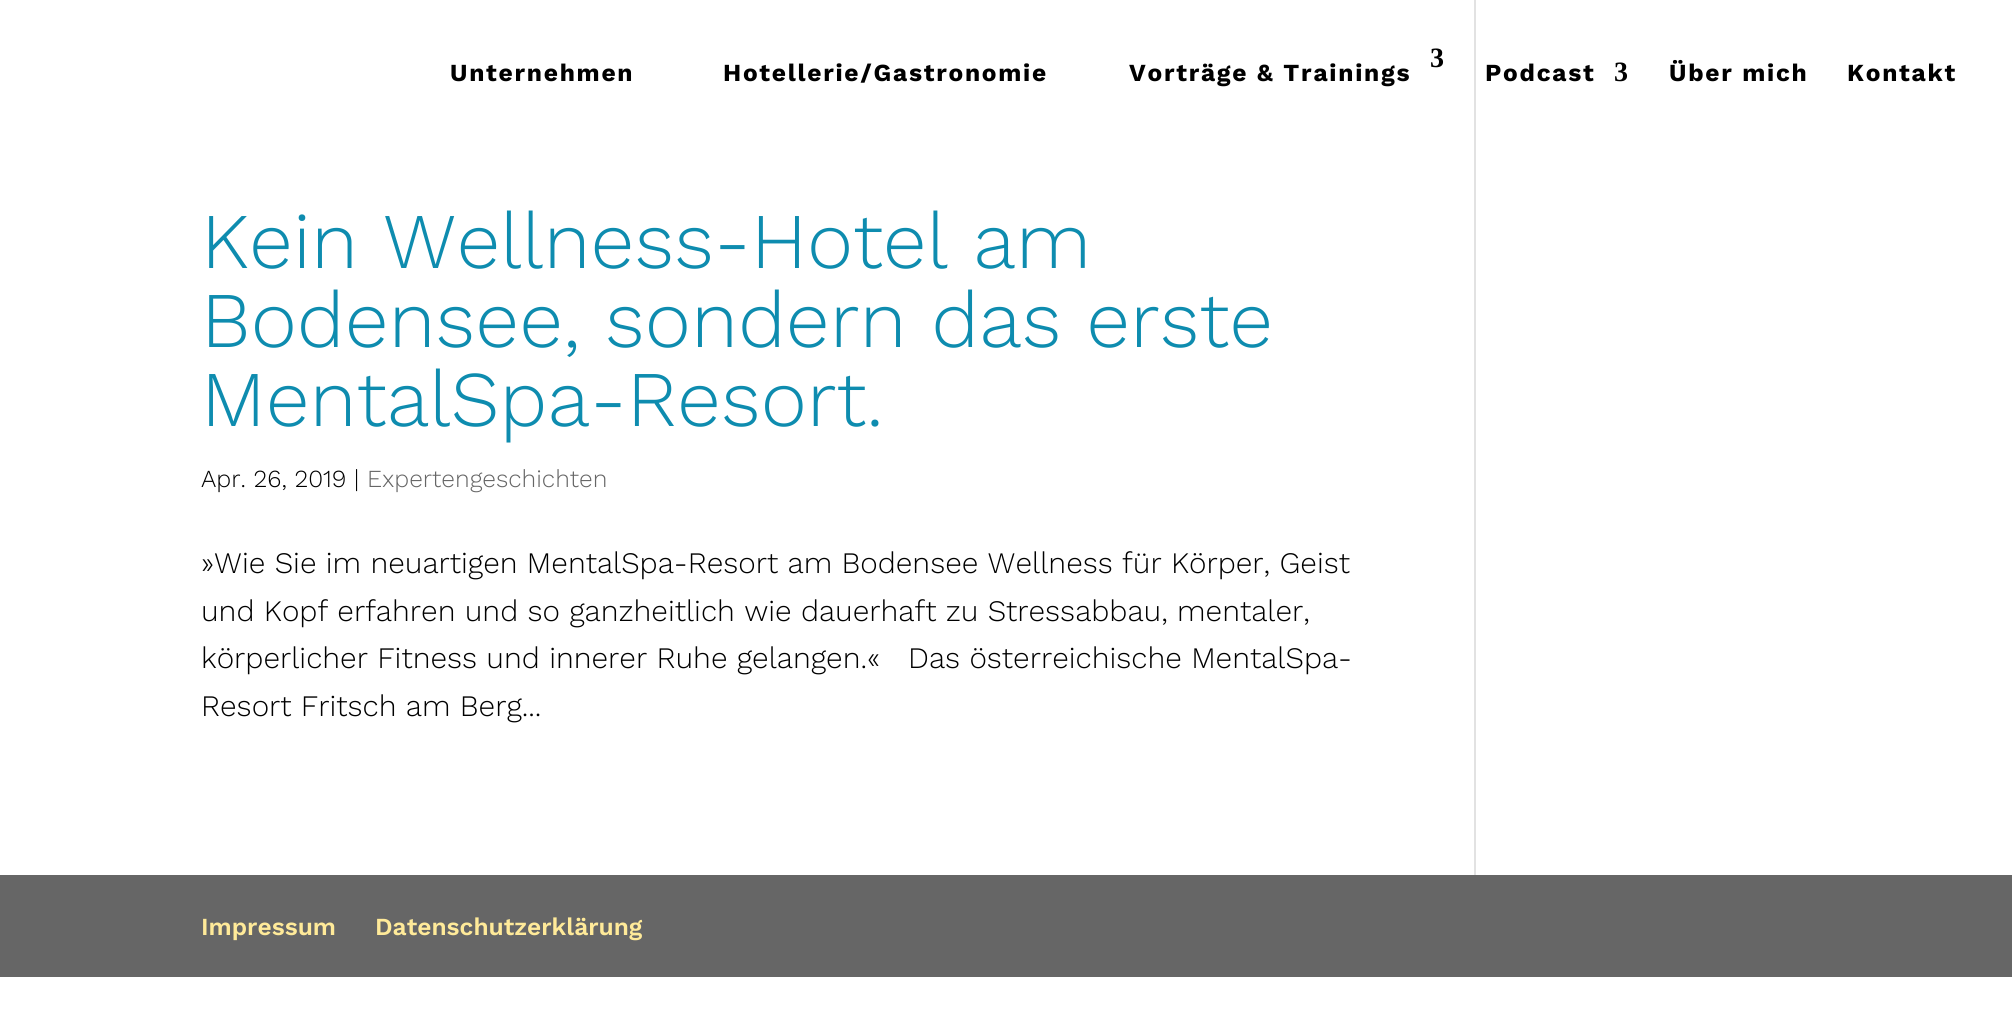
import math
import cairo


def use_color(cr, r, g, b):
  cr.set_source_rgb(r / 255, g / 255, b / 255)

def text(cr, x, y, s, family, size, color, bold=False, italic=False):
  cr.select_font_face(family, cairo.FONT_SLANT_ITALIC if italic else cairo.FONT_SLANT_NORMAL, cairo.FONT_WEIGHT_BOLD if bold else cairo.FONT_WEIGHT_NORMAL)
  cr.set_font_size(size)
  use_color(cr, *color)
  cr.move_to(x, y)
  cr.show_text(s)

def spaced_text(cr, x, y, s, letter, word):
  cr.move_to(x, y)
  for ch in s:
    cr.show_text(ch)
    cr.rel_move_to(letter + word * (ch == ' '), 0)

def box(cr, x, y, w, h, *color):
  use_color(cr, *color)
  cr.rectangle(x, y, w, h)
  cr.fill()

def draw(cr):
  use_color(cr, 255, 255, 255)
  cr.paint()
  box(cr, 1474, 0, 2, 875, 226, 226, 226)
  box(cr, 0, 875, 2012, 102, 102, 102, 102)
  cr.select_font_face("Work Sans", cairo.FONT_SLANT_NORMAL, cairo.FONT_WEIGHT_BOLD)
  cr.set_font_size(24.5)
  use_color(cr, 0, 0, 0)
  spaced_text(cr, 450, 81, "Unternehmen", 1.75, 0)
  spaced_text(cr, 723, 81, "Hotellerie/Gastronomie", 1.75, 0)
  cr.select_font_face("Liberation Serif", cairo.FONT_SLANT_NORMAL, cairo.FONT_WEIGHT_BOLD)
  cr.set_font_size(28)
  spaced_text(cr, 1430, 67, "3", 1.75, 0)
  cr.select_font_face("Work Sans", cairo.FONT_SLANT_NORMAL, cairo.FONT_WEIGHT_BOLD)
  cr.set_font_size(24.5)
  spaced_text(cr, 1129, 81, "Vorträge & Trainings", 1.75, 0)
  spaced_text(cr, 1485, 81, "Podcast", 1.75, 0)
  cr.select_font_face("Liberation Serif", cairo.FONT_SLANT_NORMAL, cairo.FONT_WEIGHT_BOLD)
  cr.set_font_size(28)
  spaced_text(cr, 1614, 81, "3", 1.75, 0)
  cr.select_font_face("Work Sans", cairo.FONT_SLANT_NORMAL, cairo.FONT_WEIGHT_BOLD)
  cr.set_font_size(24.5)
  spaced_text(cr, 1669, 81, "Über mich", 1.75, 0)
  spaced_text(cr, 1847, 81, "Kontakt", 1.75, 0)
  text(cr, 201, 268, "Kein Wellness-Hotel am", "Work Sans Light", 78.75, (14, 140, 175))
  text(cr, 201, 347, "Bodensee, sondern das erste", "Work Sans Light", 78.75, (14, 140, 175))
  text(cr, 201, 426, "MentalSpa-Resort.", "Work Sans Light", 78.75, (14, 140, 175))
  text(cr, 201, 487, "Apr. 26, 2019 |", "Work Sans Light", 24.5, (0, 0, 0))
  text(cr, 367, 487, "Expertengeschichten", "Work Sans Light", 24.5, (102, 102, 102))
  text(cr, 201, 573, "»Wie Sie im neuartigen MentalSpa-Resort am Bodensee Wellness für Körper, Geist", "Work Sans Light", 29.75, (0, 0, 0))
  text(cr, 201, 621, "und Kopf erfahren und so ganzheitlich wie dauerhaft zu Stressabbau, mentaler,", "Work Sans Light", 29.75, (0, 0, 0))
  text(cr, 201, 668, "körperlicher Fitness und innerer Ruhe gelangen.«   Das österreichische MentalSpa-", "Work Sans Light", 29.75, (0, 0, 0))
  text(cr, 201, 716, "Resort Fritsch am Berg...", "Work Sans Light", 29.75, (0, 0, 0))
  text(cr, 201, 935, "Impressum", "Work Sans SemiBold", 24.5, (255, 234, 153))
  text(cr, 375, 935, "Datenschutzerklärung", "Work Sans SemiBold", 24.5, (255, 234, 153))


surface = cairo.ImageSurface(cairo.FORMAT_RGB24, 2012, 1032)
cr = cairo.Context(surface)
options = cairo.FontOptions()
options.set_hint_metrics(cairo.HINT_METRICS_OFF)
options.set_hint_style(cairo.HINT_STYLE_NONE)
cr.set_font_options(options)
cr.set_miter_limit(4)
draw(cr)
surface.write_to_png("out.png")
